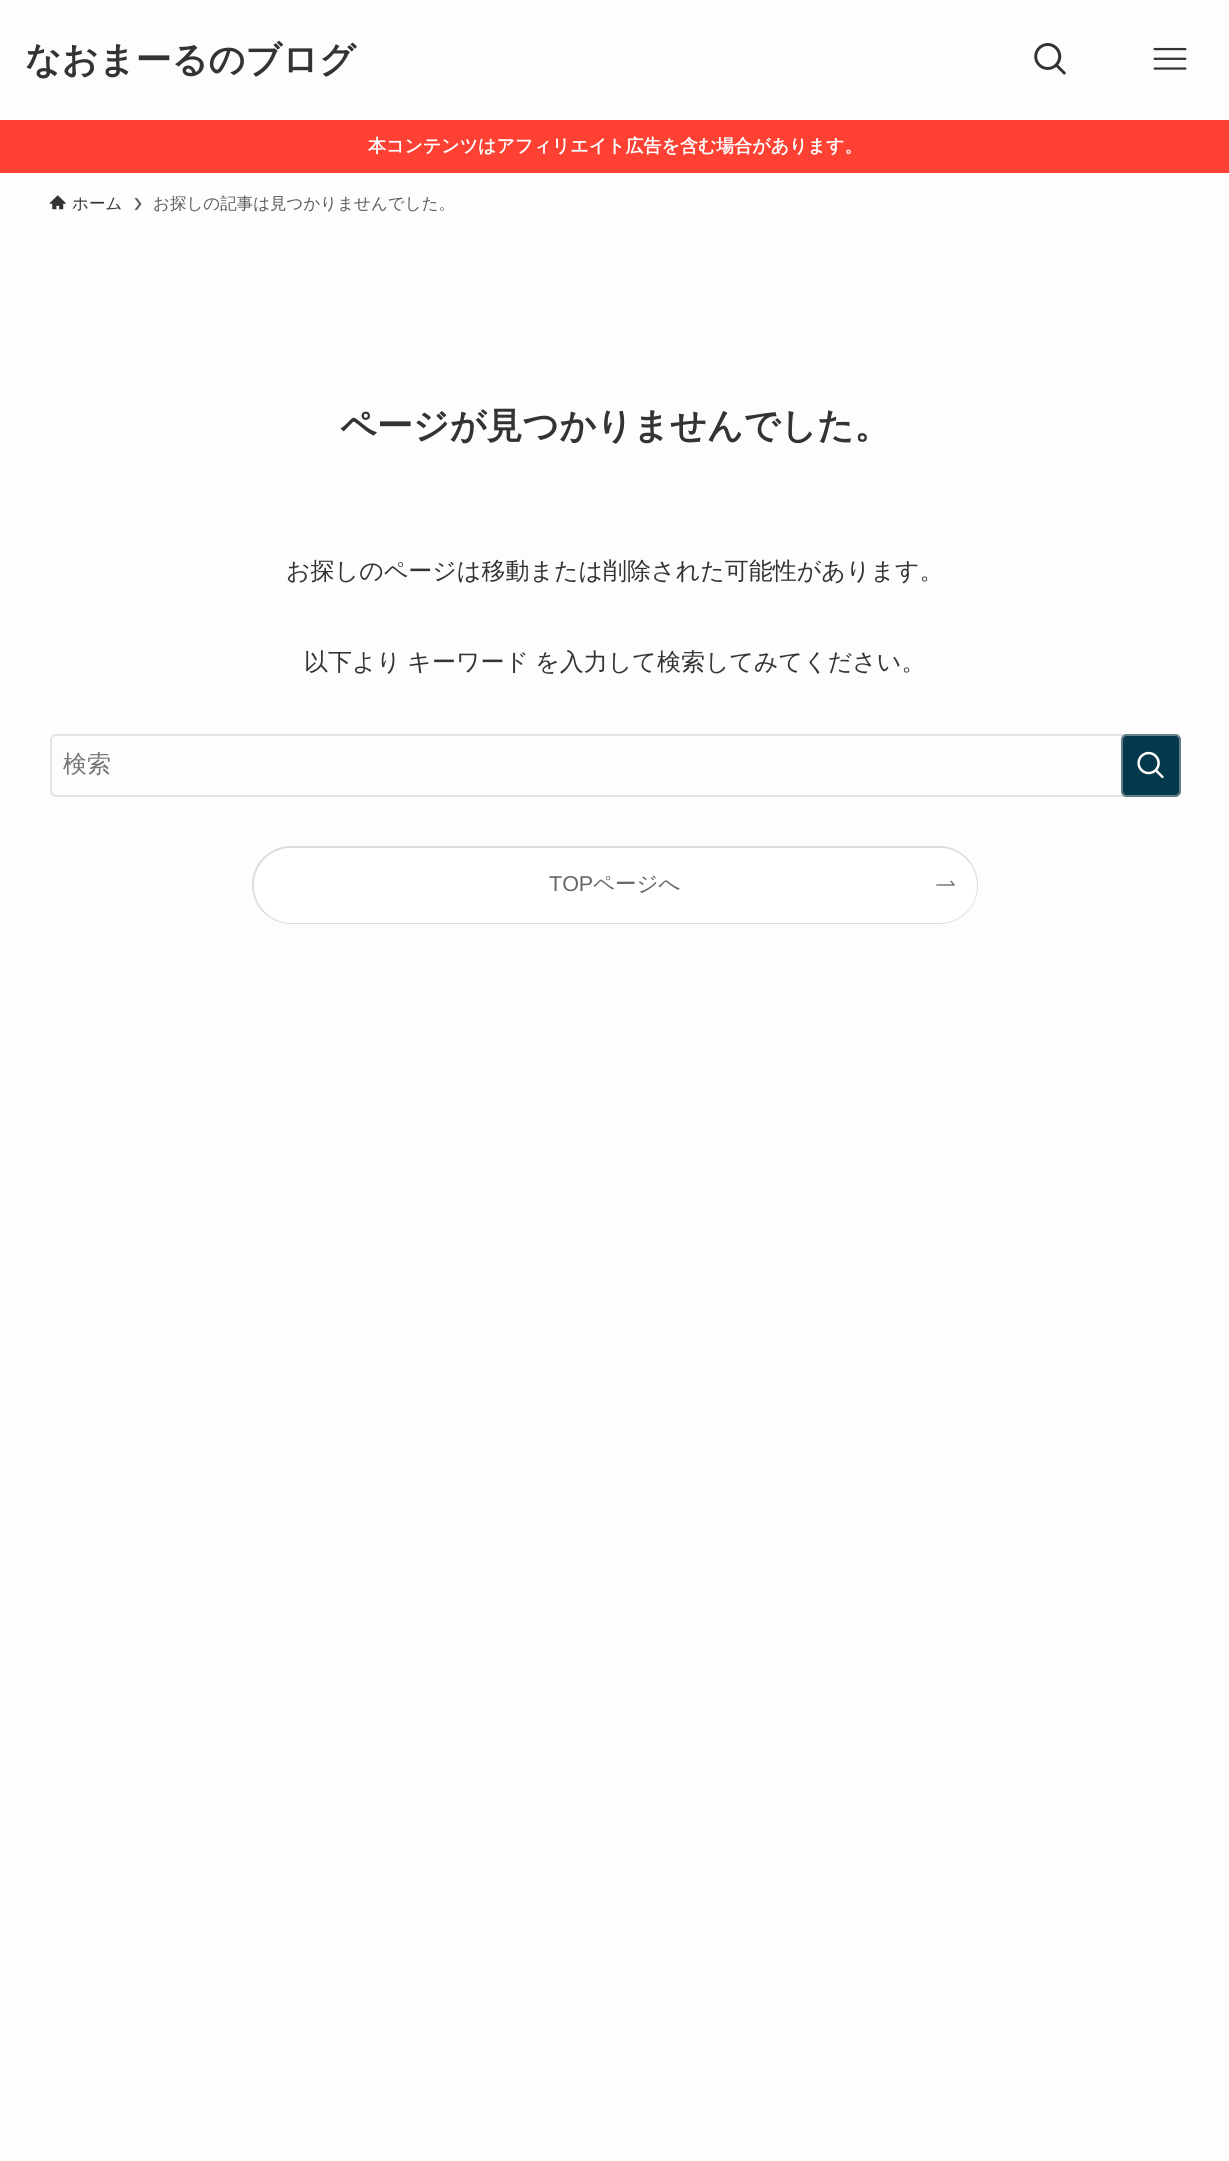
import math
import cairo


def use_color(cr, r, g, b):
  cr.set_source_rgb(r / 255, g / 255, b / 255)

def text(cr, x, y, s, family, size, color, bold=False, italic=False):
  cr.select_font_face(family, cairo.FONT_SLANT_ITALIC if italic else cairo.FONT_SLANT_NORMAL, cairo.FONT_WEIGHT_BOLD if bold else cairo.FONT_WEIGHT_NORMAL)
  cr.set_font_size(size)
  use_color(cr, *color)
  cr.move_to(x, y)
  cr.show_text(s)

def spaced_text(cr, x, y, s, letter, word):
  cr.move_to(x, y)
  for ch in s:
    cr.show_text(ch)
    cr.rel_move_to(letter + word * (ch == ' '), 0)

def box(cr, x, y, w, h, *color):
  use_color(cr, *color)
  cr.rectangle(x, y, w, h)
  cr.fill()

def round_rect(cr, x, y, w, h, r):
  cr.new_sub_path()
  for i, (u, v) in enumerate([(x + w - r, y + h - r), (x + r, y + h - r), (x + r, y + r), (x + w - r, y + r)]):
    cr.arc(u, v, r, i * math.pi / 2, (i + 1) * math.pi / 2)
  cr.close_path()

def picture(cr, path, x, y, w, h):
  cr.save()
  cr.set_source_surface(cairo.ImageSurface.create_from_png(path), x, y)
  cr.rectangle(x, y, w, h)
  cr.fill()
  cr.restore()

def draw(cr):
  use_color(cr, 253, 253, 253)
  cr.paint()
  picture(cr, "img_01.png", 1034, 43, 32, 32)
  picture(cr, "img_02.png", 1153, 47, 34, 23)
  box(cr, 0, 120, 1229, 53, 255, 65, 51)
  picture(cr, "img_03.png", 49, 195, 17, 15)
  use_color(cr, 91, 91, 91)
  cr.new_path()
  cr.move_to(137, 198)
  cr.line_to(134.5, 198)
  cr.line_to(139, 204)
  cr.line_to(134.5, 210)
  cr.line_to(137, 210)
  cr.line_to(141.5, 204)
  cr.close_path()
  cr.fill()
  round_rect(cr, 51, 735, 1129, 61, 5)
  use_color(cr, 227, 227, 227)
  cr.stroke()
  use_color(cr, 4, 56, 76)
  round_rect(cr, 1121, 734, 60, 63, 6)
  cr.fill()
  round_rect(cr, 1122, 735, 58, 61, 5)
  cr.set_source_rgba(0.78, 0.78, 0.78, 0.5)
  cr.stroke()
  picture(cr, "img_04.png", 1137, 751, 27, 28)
  round_rect(cr, 253, 847, 724, 76, 38)
  use_color(cr, 220, 220, 220)
  cr.stroke()
  use_color(cr, 255, 255, 255)
  round_rect(cr, 254, 848, 723, 75, 37.5)
  cr.fill()
  picture(cr, "img_05.png", 936, 880, 19, 6)
  text(cr, 25, 72, "なおまーるのブログ", "WenQuanYi Zen Hei", 36, (51, 51, 51), bold=True)
  text(cr, 368, 152, "本コンテンツはアフィリエイト広告を含む場合があります。", "WenQuanYi Zen Hei", 18, (255, 255, 255), bold=True)
  text(cr, 72, 209, "ホーム", "WenQuanYi Zen Hei Medium", 16.5, (51, 51, 51))
  text(cr, 153, 209, "お探しの記事は見つかりませんでした。", "WenQuanYi Zen Hei Medium", 16.5, (91, 91, 91))
  text(cr, 340, 438, "ページが見つかりませんでした。", "WenQuanYi Zen Hei", 36, (51, 51, 51), bold=True)
  text(cr, 286, 579, "お探しのページは移動または削除された可能性があります。", "WenQuanYi Zen Hei Medium", 24, (51, 51, 51))
  spaced_text(cr, 304, 670, "以下より キーワード を入力して検索してみてください。", 0, -1)
  text(cr, 63, 772, "検索", "WenQuanYi Zen Hei Medium", 24, (117, 117, 117))
  text(cr, 549, 891, "TOP", "Liberation Sans", 21.5, (102, 102, 102))
  text(cr, 593, 891, "ページへ", "WenQuanYi Zen Hei Medium", 21.5, (102, 102, 102))


surface = cairo.ImageSurface(cairo.FORMAT_RGB24, 1229, 2161)
cr = cairo.Context(surface)
options = cairo.FontOptions()
options.set_hint_metrics(cairo.HINT_METRICS_OFF)
options.set_hint_style(cairo.HINT_STYLE_NONE)
cr.set_font_options(options)
cr.set_miter_limit(4)
draw(cr)
surface.write_to_png("out.png")
